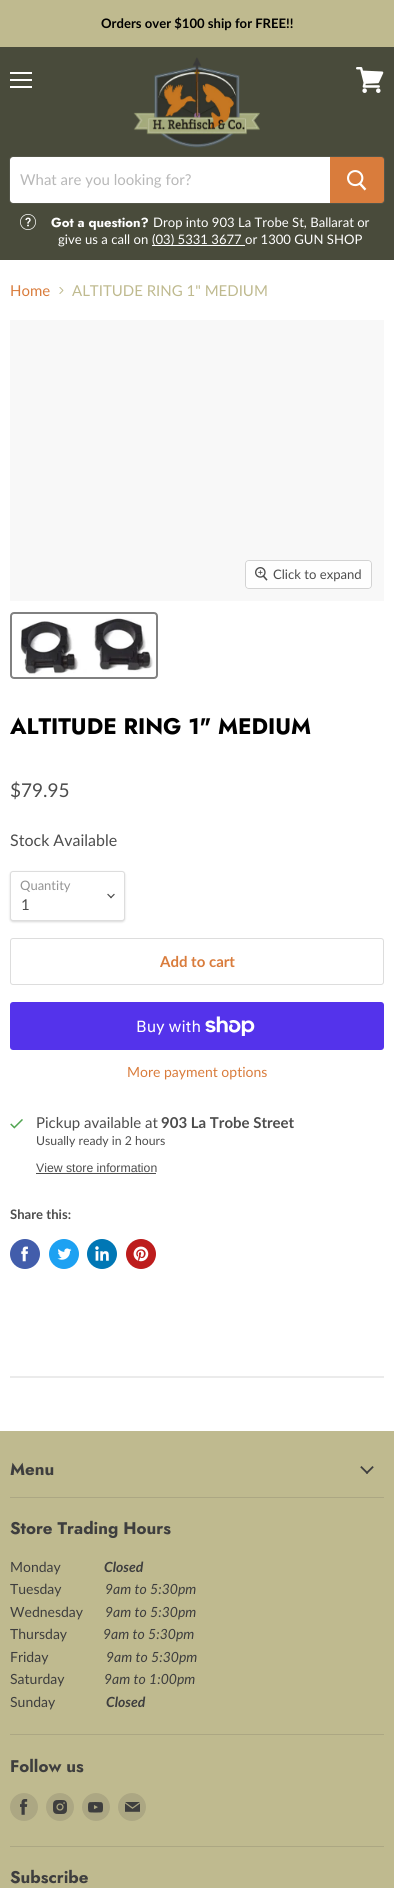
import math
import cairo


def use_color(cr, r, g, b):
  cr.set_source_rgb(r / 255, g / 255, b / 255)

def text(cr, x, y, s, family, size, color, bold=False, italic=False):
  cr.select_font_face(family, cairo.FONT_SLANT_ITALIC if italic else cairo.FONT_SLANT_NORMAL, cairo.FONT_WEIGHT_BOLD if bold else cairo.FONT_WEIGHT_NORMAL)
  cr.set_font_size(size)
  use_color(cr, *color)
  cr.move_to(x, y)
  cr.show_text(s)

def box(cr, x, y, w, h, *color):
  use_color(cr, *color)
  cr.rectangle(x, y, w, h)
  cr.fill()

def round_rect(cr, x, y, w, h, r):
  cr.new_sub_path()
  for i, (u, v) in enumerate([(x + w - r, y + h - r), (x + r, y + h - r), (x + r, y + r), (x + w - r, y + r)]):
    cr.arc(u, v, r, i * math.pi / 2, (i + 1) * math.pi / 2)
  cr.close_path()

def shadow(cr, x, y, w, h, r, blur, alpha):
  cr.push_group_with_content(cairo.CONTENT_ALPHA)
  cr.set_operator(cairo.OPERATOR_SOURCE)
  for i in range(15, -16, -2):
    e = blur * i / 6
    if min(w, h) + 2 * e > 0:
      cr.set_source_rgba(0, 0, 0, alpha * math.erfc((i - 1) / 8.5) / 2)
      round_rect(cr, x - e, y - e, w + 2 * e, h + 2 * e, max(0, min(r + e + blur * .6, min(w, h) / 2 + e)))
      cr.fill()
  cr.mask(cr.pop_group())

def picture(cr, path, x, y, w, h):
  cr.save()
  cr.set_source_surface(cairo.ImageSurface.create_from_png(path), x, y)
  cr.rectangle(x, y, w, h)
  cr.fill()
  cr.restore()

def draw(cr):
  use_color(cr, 255, 255, 255)
  cr.paint()
  box(cr, 0, 0, 394, 47, 191, 186, 143)
  box(cr, 0, 47, 394, 213, 73, 75, 59)
  box(cr, 10, 72, 22, 2, 255, 255, 255)
  box(cr, 10, 79, 22, 2, 255, 255, 255)
  box(cr, 10, 86, 22, 2, 255, 255, 255)
  picture(cr, "img_01.png", 356, 67, 28, 26)
  picture(cr, "img_02.png", 133, 57, 127, 91)
  round_rect(cr, 9.5, 156.5, 375, 47, 3.5)
  use_color(cr, 84, 86, 73)
  cr.set_line_width(1)
  cr.stroke()
  use_color(cr, 255, 255, 255)
  cr.new_path()
  cr.move_to(13, 157)
  cr.line_to(330, 157)
  cr.line_to(330, 203)
  cr.line_to(13, 203)
  cr.curve_to(11.5, 203, 10, 201.5, 10, 200)
  cr.line_to(10, 160)
  cr.curve_to(10, 158.5, 11.5, 157, 13, 157)
  cr.close_path()
  cr.fill()
  use_color(cr, 217, 124, 60)
  cr.new_path()
  cr.move_to(330.5, 157.5)
  cr.line_to(381, 157.5)
  cr.curve_to(382.5, 157.5, 383.5, 158.5, 383.5, 160)
  cr.line_to(383.5, 200)
  cr.curve_to(383.5, 201.5, 382.5, 202.5, 381, 202.5)
  cr.line_to(330.5, 202.5)
  cr.close_path()
  cr.fill_preserve()
  cr.stroke()
  picture(cr, "img_03.png", 347, 170, 20, 21)
  picture(cr, "img_04.png", 20, 214, 16, 16)
  box(cr, 152, 245, 93, 1, 255, 255, 255)
  picture(cr, "img_05.png", 59, 287, 5, 7)
  box(cr, 10, 320, 374, 281, 248, 248, 248)
  round_rect(cr, 245.5, 560.5, 126, 28, 3.5)
  use_color(cr, 211, 211, 211)
  cr.stroke()
  cr.set_source_rgba(1, 1, 1, 0.9)
  round_rect(cr, 246, 561, 125, 27, 3)
  cr.fill()
  picture(cr, "img_06.png", 255, 567, 13, 14)
  round_rect(cr, 11, 613, 146, 65, 3)
  use_color(cr, 129, 129, 129)
  cr.set_line_width(2)
  cr.stroke()
  picture(cr, "img_07.png", 20, 618, 134, 57)
  use_color(cr, 0, 0, 0)
  shadow(cr, 10, 872, 115, 50, 3, 1, 0.15)
  use_color(cr, 255, 255, 255)
  round_rect(cr, 10.5, 871.5, 114, 49, 2.5)
  cr.fill_preserve()
  use_color(cr, 221, 221, 221)
  cr.set_line_width(1)
  cr.stroke()
  picture(cr, "img_08.png", 107, 893, 8, 6)
  round_rect(cr, 10.5, 938.5, 373, 46, 2.5)
  cr.stroke()
  use_color(cr, 84, 51, 235)
  round_rect(cr, 10, 1002, 374, 48, 3)
  cr.fill()
  picture(cr, "img_09.png", 205, 1016, 50, 20)
  picture(cr, "img_10.png", 10, 1119, 13, 10)
  box(cr, 36, 1173, 120, 1, 77, 77, 77)
  use_color(cr, 66, 93, 171)
  cr.arc(25, 1254, 15, 0, 2 * math.pi)
  cr.fill()
  picture(cr, "img_11.png", 21, 1246, 7, 16)
  use_color(cr, 29, 161, 242)
  cr.arc(64, 1254, 15, 0, 2 * math.pi)
  cr.fill()
  picture(cr, "img_12.png", 57, 1248, 15, 12)
  use_color(cr, 0, 119, 181)
  cr.arc(102, 1254, 15, 0, 2 * math.pi)
  cr.fill()
  picture(cr, "img_13.png", 95, 1246, 14, 15)
  use_color(cr, 189, 28, 28)
  cr.arc(141, 1254, 15, 0, 2 * math.pi)
  cr.fill()
  picture(cr, "img_14.png", 133, 1246, 16, 16)
  box(cr, 10, 1376, 374, 2, 235, 235, 235)
  box(cr, 0, 1431, 394, 457, 191, 186, 143)
  box(cr, 10, 1497, 374, 1, 172, 167, 131)
  picture(cr, "img_15.png", 360, 1466, 14, 8)
  box(cr, 10, 1734, 374, 1, 172, 167, 131)
  box(cr, 10, 1846, 374, 1, 172, 167, 131)
  cr.arc(24, 1807, 14, 0, 2 * math.pi)
  cr.fill()
  picture(cr, "img_16.png", 20, 1799, 8, 16)
  cr.arc(60, 1807, 14, 0, 2 * math.pi)
  cr.fill()
  picture(cr, "img_17.png", 53, 1800, 14, 14)
  cr.arc(96, 1807, 14, 0, 2 * math.pi)
  cr.fill()
  picture(cr, "img_18.png", 88, 1802, 15, 11)
  cr.arc(132, 1807, 14, 0, 2 * math.pi)
  cr.fill()
  picture(cr, "img_19.png", 125, 1802, 15, 10)
  text(cr, 101, 28, "Orders over $100 ship for FREE!!", "Lato", 13.1, (0, 0, 0), bold=True)
  text(cr, 20, 185, "What are you looking for?", "Lato", 15, (184, 184, 184))
  text(cr, 51, 227, "Got a question?", "Jost", 13.1, (255, 255, 255), bold=True)
  text(cr, 153, 227, "Drop into 903 La Trobe St, Ballarat or", "Lato", 13.1, (255, 255, 255))
  text(cr, 58, 244, "give us a call on", "Lato", 13.1, (255, 255, 255))
  text(cr, 152, 244, "(03) 5331 3677", "Lato", 13.1, (255, 255, 255))
  text(cr, 245, 244, "or 1300 GUN SHOP", "Lato", 13.1, (255, 255, 255))
  text(cr, 10, 296, "Home", "Lato", 15, (217, 124, 60))
  text(cr, 72, 296, "ALTITUDE RING 1\" MEDIUM", "Lato", 15, (191, 186, 143))
  text(cr, 273, 579, "Click to expand", "Lato", 13.1, (77, 77, 77))
  text(cr, 10, 734, "ALTITUDE RING 1\" MEDIUM", "Jost", 22.5, (0, 0, 0), bold=True)
  text(cr, 10, 797, "$79.95", "Lato", 19, (77, 77, 77))
  text(cr, 10, 846, "Stock Available", "Lato", 16, (77, 77, 77))
  text(cr, 20, 890, "Quantity", "Lato", 13, (148, 148, 148))
  text(cr, 21, 910, "1", "Lato", 15, (77, 77, 77))
  text(cr, 160, 967, "Add to cart", "Lato", 15, (217, 124, 60), bold=True)
  text(cr, 136, 1032, "Buy with", "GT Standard", 16, (255, 255, 255))
  text(cr, 127, 1077, "More payment options", "Lato", 14, (217, 124, 60))
  text(cr, 36, 1128, "Pickup available at", "Lato", 15, (77, 77, 77))
  text(cr, 161, 1128, "903 La Trobe Street", "Lato", 15, (77, 77, 77), bold=True)
  text(cr, 36, 1145, "Usually ready in 2 hours", "Lato", 12.25, (77, 77, 77))
  text(cr, 36, 1172, "View store information", "Liberation Sans", 12.25, (77, 77, 77))
  text(cr, 10, 1219, "Share this:", "Lato", 13.1, (77, 77, 77), bold=True)
  text(cr, 10, 1475, "Menu", "Jost", 16.9, (62, 62, 62), bold=True)
  text(cr, 10, 1534, "Store Trading Hours", "Jost", 16.9, (62, 62, 62), bold=True)
  text(cr, 10, 1572, "Monday", "Lato", 14, (62, 62, 62))
  text(cr, 104, 1572, "Closed", "Lato", 14, (62, 62, 62), bold=True, italic=True)
  text(cr, 10, 1594, "Tuesday", "Lato", 14, (62, 62, 62))
  text(cr, 105, 1594, "9am to 5:30pm", "Lato", 14, (62, 62, 62), italic=True)
  text(cr, 10, 1617, "Wednesday", "Lato", 14, (62, 62, 62))
  text(cr, 105, 1617, "9am to 5:30pm", "Lato", 14, (62, 62, 62), italic=True)
  text(cr, 10, 1639, "Thursday", "Lato", 14, (62, 62, 62))
  text(cr, 103, 1639, "9am to 5:30pm", "Lato", 14, (62, 62, 62), italic=True)
  text(cr, 10, 1662, "Friday", "Lato", 14, (62, 62, 62))
  text(cr, 106, 1662, "9am to 5:30pm", "Lato", 14, (62, 62, 62), italic=True)
  text(cr, 10, 1684, "Saturday", "Lato", 14, (62, 62, 62))
  text(cr, 104, 1684, "9am to 1:00pm", "Lato", 14, (62, 62, 62), italic=True)
  text(cr, 10, 1707, "Sunday", "Lato", 14, (62, 62, 62))
  text(cr, 106, 1707, "Closed", "Lato", 14, (62, 62, 62), bold=True, italic=True)
  text(cr, 10, 1772, "Follow us", "Jost", 16.9, (62, 62, 62), bold=True)
  text(cr, 10, 1883, "Subscribe", "Jost", 16.9, (62, 62, 62), bold=True)


surface = cairo.ImageSurface(cairo.FORMAT_RGB24, 394, 1888)
cr = cairo.Context(surface)
options = cairo.FontOptions()
options.set_hint_metrics(cairo.HINT_METRICS_OFF)
options.set_hint_style(cairo.HINT_STYLE_NONE)
cr.set_font_options(options)
cr.set_miter_limit(4)
draw(cr)
surface.write_to_png("out.png")
